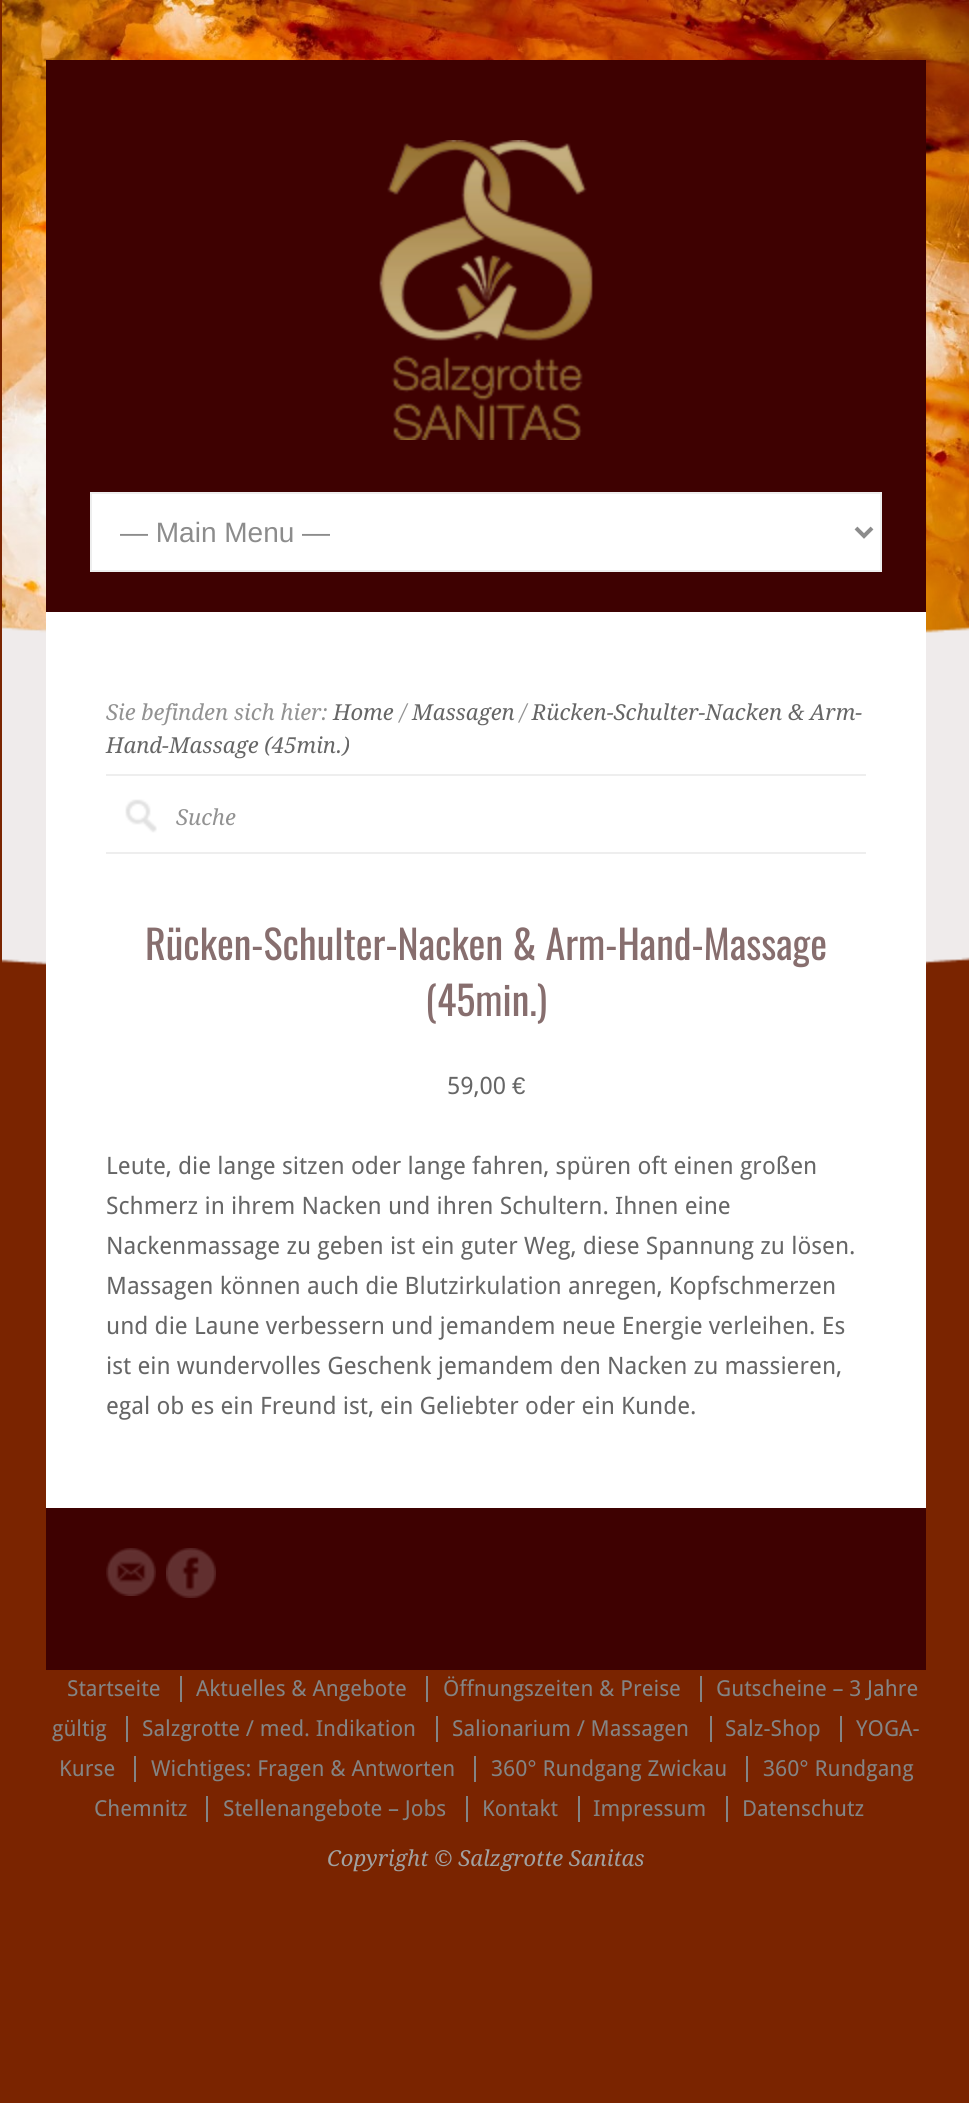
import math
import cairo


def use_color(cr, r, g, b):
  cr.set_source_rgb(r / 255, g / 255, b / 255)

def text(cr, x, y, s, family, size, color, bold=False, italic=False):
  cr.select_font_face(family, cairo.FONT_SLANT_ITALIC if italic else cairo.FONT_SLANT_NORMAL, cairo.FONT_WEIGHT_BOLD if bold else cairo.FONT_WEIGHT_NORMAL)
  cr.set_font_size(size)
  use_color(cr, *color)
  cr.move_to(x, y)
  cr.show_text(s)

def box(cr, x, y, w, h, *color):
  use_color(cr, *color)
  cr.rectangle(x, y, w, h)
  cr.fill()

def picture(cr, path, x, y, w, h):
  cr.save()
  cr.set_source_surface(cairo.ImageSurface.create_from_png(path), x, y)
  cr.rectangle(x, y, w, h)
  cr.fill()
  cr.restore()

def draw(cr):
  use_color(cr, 122, 36, 0)
  cr.paint()
  picture(cr, "img_01.png", 2, 0, 967, 633)
  picture(cr, "img_02.png", 2, 626, 967, 339)
  box(cr, 46, 60, 880, 552, 62, 1, 1)
  picture(cr, "img_03.png", 379, 140, 214, 300)
  use_color(cr, 255, 255, 255)
  cr.rectangle(91, 493, 790, 78)
  cr.fill_preserve()
  use_color(cr, 238, 238, 238)
  cr.stroke()
  cr.new_path()
  cr.move_to(856, 528)
  cr.line_to(864, 536)
  cr.line_to(872, 528)
  use_color(cr, 140, 140, 140)
  cr.set_line_width(4)
  cr.stroke()
  box(cr, 46, 612, 880, 896, 255, 255, 255)
  box(cr, 106, 774, 760, 2, 238, 238, 238)
  picture(cr, "img_04.png", 125, 799, 32, 34)
  box(cr, 106, 852, 760, 2, 238, 238, 238)
  box(cr, 46, 1508, 880, 162, 62, 1, 1)
  picture(cr, "img_05.png", 106, 1548, 50, 48)
  picture(cr, "img_06.png", 166, 1548, 50, 50)
  box(cr, 180, 1676, 2, 26, 132, 132, 132)
  box(cr, 426, 1676, 2, 26, 132, 132, 132)
  box(cr, 700, 1676, 2, 26, 132, 132, 132)
  box(cr, 126, 1716, 2, 26, 132, 132, 132)
  box(cr, 436, 1716, 2, 26, 132, 132, 132)
  box(cr, 710, 1716, 2, 26, 132, 132, 132)
  box(cr, 840, 1716, 2, 26, 132, 132, 132)
  box(cr, 134, 1756, 2, 26, 132, 132, 132)
  box(cr, 474, 1756, 2, 26, 132, 132, 132)
  box(cr, 746, 1756, 2, 26, 132, 132, 132)
  box(cr, 206, 1796, 2, 26, 132, 132, 132)
  box(cr, 466, 1796, 2, 26, 132, 132, 132)
  box(cr, 578, 1796, 2, 26, 132, 132, 132)
  box(cr, 726, 1796, 2, 26, 132, 132, 132)
  text(cr, 120, 542, "— Main Menu —", "Liberation Sans", 28, (140, 140, 140))
  text(cr, 106, 720, "Sie befinden sich hier:", "Droid Serif", 22, (146, 146, 146), italic=True)
  text(cr, 333, 720, "Home", "Droid Serif", 22, (102, 102, 102), italic=True)
  text(cr, 400, 720, "/", "Droid Serif", 22, (146, 146, 146), italic=True)
  text(cr, 412, 720, "Massagen", "Droid Serif", 22, (102, 102, 102), italic=True)
  text(cr, 520, 720, "/", "Droid Serif", 22, (146, 146, 146), italic=True)
  text(cr, 532, 720, "Rücken-Schulter-Nacken & Arm-", "Droid Serif", 22, (102, 102, 102), italic=True)
  text(cr, 106, 753, "Hand-Massage (45min.)", "Droid Serif", 22, (102, 102, 102), italic=True)
  text(cr, 176, 825, "Suche", "Droid Serif", 22, (146, 146, 146), italic=True)
  text(cr, 145, 960, "Rücken-Schulter-Nacken & Arm-Hand-Massage", "Oswald", 40, (135, 110, 110))
  text(cr, 425, 1016, "(45min.)", "Oswald", 40, (135, 110, 110))
  text(cr, 447, 1094, "59,00", "Droid Sans", 24, (102, 102, 102))
  text(cr, 512, 1094, "€", "Liberation Sans", 24, (102, 102, 102))
  text(cr, 106, 1174, "Leute, die lange sitzen oder lange fahren, spüren oft einen großen", "Droid Sans", 24, (102, 102, 102))
  text(cr, 106, 1214, "Schmerz in ihrem Nacken und ihren Schultern. Ihnen eine", "Droid Sans", 24, (102, 102, 102))
  text(cr, 106, 1254, "Nackenmassage zu geben ist ein guter Weg, diese Spannung zu lösen.", "Droid Sans", 24, (102, 102, 102))
  text(cr, 106, 1294, "Massagen können auch die Blutzirkulation anregen, Kopfschmerzen", "Droid Sans", 24, (102, 102, 102))
  text(cr, 106, 1334, "und die Laune verbessern und jemandem neue Energie verleihen. Es", "Droid Sans", 24, (102, 102, 102))
  text(cr, 106, 1374, "ist ein wundervolles Geschenk jemandem den Nacken zu massieren,", "Droid Sans", 24, (102, 102, 102))
  text(cr, 106, 1414, "egal ob es ein Freund ist, ein Geliebter oder ein Kunde.", "Droid Sans", 24, (102, 102, 102))
  text(cr, 67, 1696, "Startseite", "Droid Sans", 22, (132, 132, 132))
  text(cr, 196, 1696, "Aktuelles & Angebote", "Droid Sans", 22, (132, 132, 132))
  text(cr, 443, 1696, "Öffnungszeiten & Preise", "Droid Sans", 22, (132, 132, 132))
  text(cr, 716, 1696, "Gutscheine – 3 Jahre", "Droid Sans", 22, (132, 132, 132))
  text(cr, 52, 1736, "gültig", "Droid Sans", 22, (132, 132, 132))
  text(cr, 142, 1736, "Salzgrotte / med. Indikation", "Droid Sans", 22, (132, 132, 132))
  text(cr, 452, 1736, "Salionarium / Massagen", "Droid Sans", 22, (132, 132, 132))
  text(cr, 725, 1736, "Salz-Shop", "Droid Sans", 22, (132, 132, 132))
  text(cr, 856, 1736, "YOGA-", "Droid Sans", 22, (132, 132, 132))
  text(cr, 59, 1776, "Kurse", "Droid Sans", 22, (132, 132, 132))
  text(cr, 151, 1776, "Wichtiges: Fragen & Antworten", "Droid Sans", 22, (132, 132, 132))
  text(cr, 491, 1776, "360° Rundgang Zwickau", "Droid Sans", 22, (132, 132, 132))
  text(cr, 763, 1776, "360° Rundgang", "Droid Sans", 22, (132, 132, 132))
  text(cr, 94, 1816, "Chemnitz", "Droid Sans", 22, (132, 132, 132))
  text(cr, 223, 1816, "Stellenangebote – Jobs", "Droid Sans", 22, (132, 132, 132))
  text(cr, 482, 1816, "Kontakt", "Droid Sans", 22, (132, 132, 132))
  text(cr, 593, 1816, "Impressum", "Droid Sans", 22, (132, 132, 132))
  text(cr, 742, 1816, "Datenschutz", "Droid Sans", 22, (132, 132, 132))
  text(cr, 327, 1866, "Copyright © Salzgrotte Sanitas", "Droid Serif", 22, (161, 161, 161), italic=True)


surface = cairo.ImageSurface(cairo.FORMAT_RGB24, 969, 2103)
cr = cairo.Context(surface)
options = cairo.FontOptions()
options.set_hint_metrics(cairo.HINT_METRICS_OFF)
options.set_hint_style(cairo.HINT_STYLE_NONE)
cr.set_font_options(options)
cr.set_miter_limit(4)
draw(cr)
surface.write_to_png("out.png")
